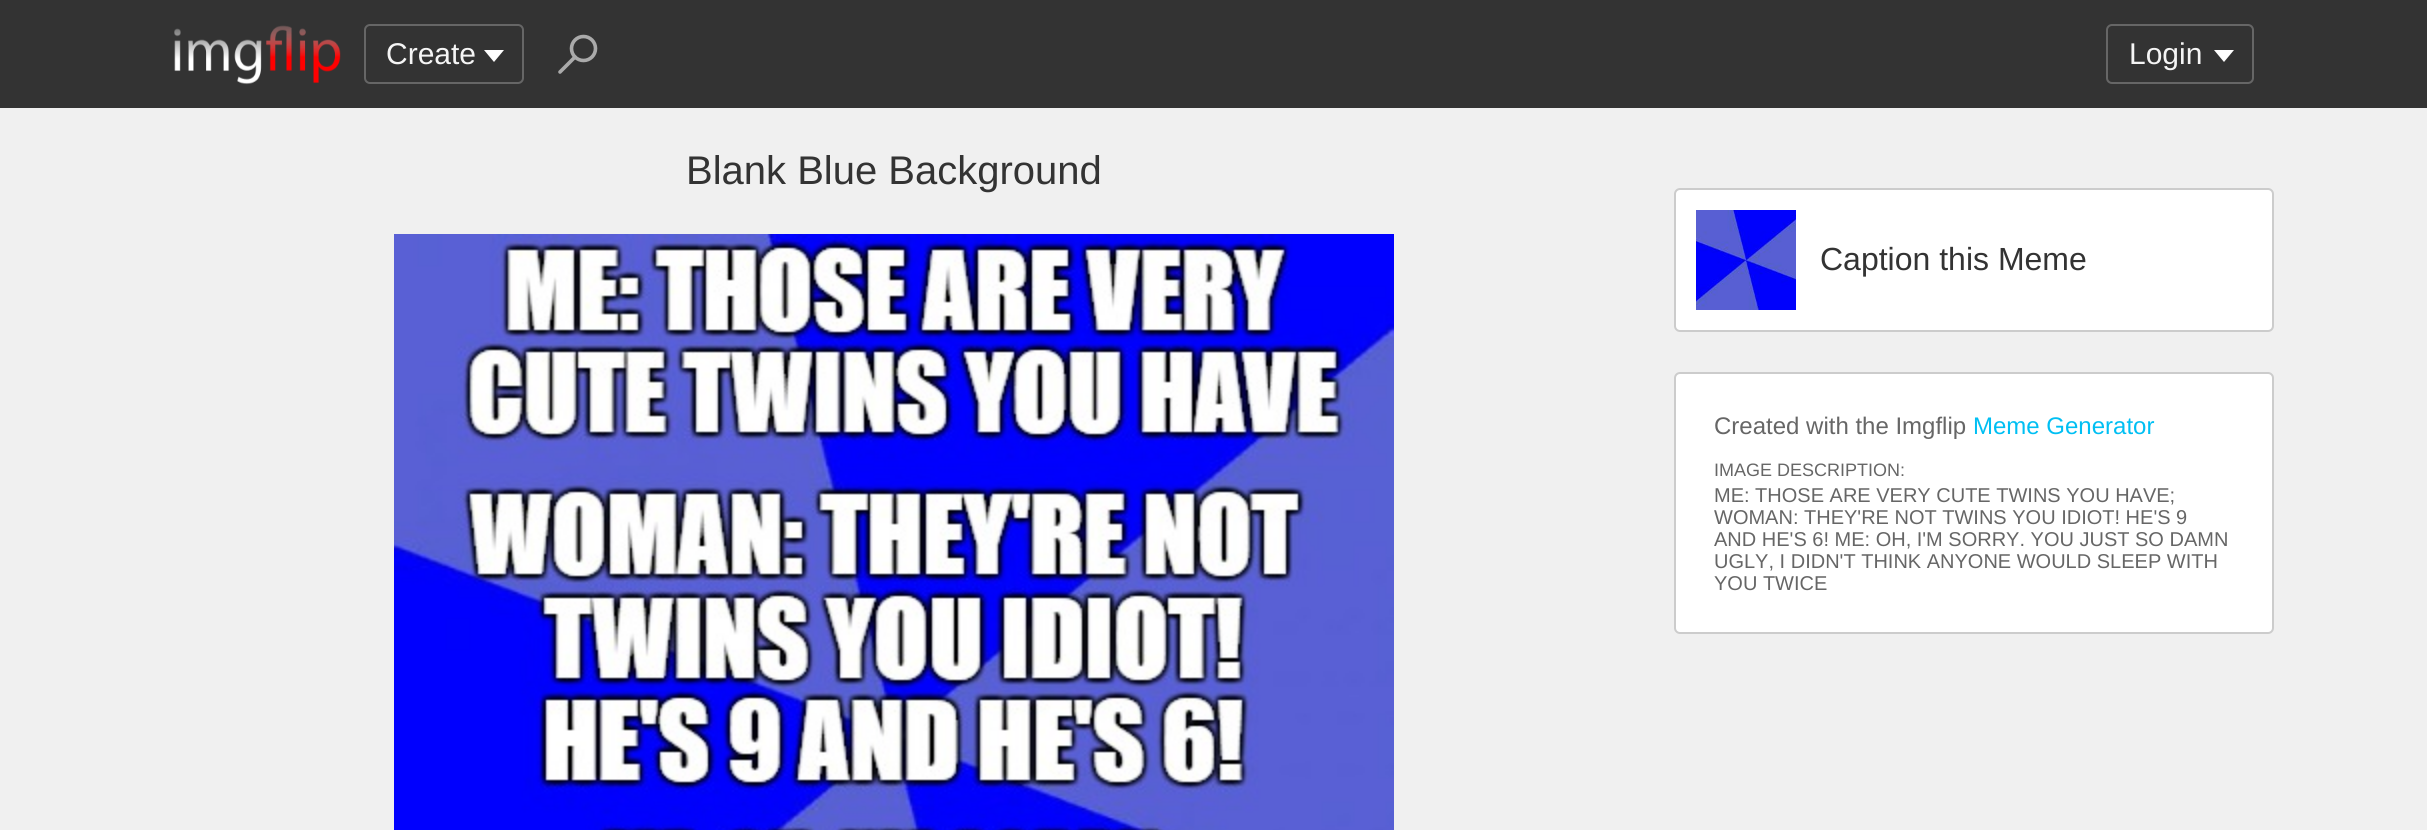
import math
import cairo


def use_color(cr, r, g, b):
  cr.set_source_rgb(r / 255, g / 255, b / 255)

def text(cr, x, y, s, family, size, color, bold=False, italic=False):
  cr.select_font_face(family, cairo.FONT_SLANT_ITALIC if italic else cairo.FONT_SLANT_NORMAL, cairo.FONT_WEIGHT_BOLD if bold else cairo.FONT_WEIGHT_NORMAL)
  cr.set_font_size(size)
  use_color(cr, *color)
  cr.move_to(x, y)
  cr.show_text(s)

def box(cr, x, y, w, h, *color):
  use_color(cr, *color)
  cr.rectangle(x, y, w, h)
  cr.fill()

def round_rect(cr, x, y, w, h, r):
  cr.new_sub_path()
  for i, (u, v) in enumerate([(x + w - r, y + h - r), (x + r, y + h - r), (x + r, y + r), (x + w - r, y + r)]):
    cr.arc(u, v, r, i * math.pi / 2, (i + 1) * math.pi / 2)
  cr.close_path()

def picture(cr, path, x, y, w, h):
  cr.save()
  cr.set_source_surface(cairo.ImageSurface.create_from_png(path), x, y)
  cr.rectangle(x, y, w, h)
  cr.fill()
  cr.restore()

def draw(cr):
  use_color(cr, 240, 240, 240)
  cr.paint()
  box(cr, 0, 0, 2427, 108, 51, 51, 51)
  picture(cr, "img_01.png", 174, 25, 167, 60)
  round_rect(cr, 365, 25, 158, 58, 5)
  use_color(cr, 102, 102, 102)
  cr.stroke()
  use_color(cr, 255, 255, 255)
  cr.new_path()
  cr.move_to(484, 50)
  cr.line_to(504, 50)
  cr.line_to(494, 62)
  cr.close_path()
  cr.fill()
  cr.new_path()
  cr.move_to(560, 72)
  cr.line_to(575, 57)
  use_color(cr, 170, 170, 170)
  cr.set_line_width(3.6)
  cr.set_line_cap(cairo.LINE_CAP_ROUND)
  cr.stroke()
  cr.arc(583.5, 48.5, 12, 0, 2 * math.pi)
  cr.set_line_cap(cairo.LINE_CAP_BUTT)
  cr.stroke()
  round_rect(cr, 2107, 25, 146, 58, 5)
  use_color(cr, 102, 102, 102)
  cr.set_line_width(2)
  cr.stroke()
  use_color(cr, 255, 255, 255)
  cr.new_path()
  cr.move_to(2214, 50)
  cr.line_to(2234, 50)
  cr.line_to(2224, 62)
  cr.close_path()
  cr.fill()
  picture(cr, "img_02.png", 394, 234, 1000, 596)
  round_rect(cr, 1675, 189, 598, 142, 5)
  cr.fill_preserve()
  use_color(cr, 204, 204, 204)
  cr.stroke()
  picture(cr, "img_03.png", 1696, 210, 100, 100)
  use_color(cr, 255, 255, 255)
  round_rect(cr, 1675, 373, 598, 260, 5)
  cr.fill_preserve()
  use_color(cr, 204, 204, 204)
  cr.stroke()
  text(cr, 386, 64, "Create", "Liberation Sans", 30, (245, 245, 245))
  text(cr, 2129, 64, "Login", "Liberation Sans", 30, (245, 245, 245))
  text(cr, 686, 184, "Blank Blue Background", "Liberation Sans", 40, (51, 51, 51))
  text(cr, 1820, 270, "Caption this Meme", "Liberation Sans", 32, (51, 51, 51))
  text(cr, 1714, 434, "Created with the Imgflip", "Liberation Sans", 24, (102, 102, 102))
  text(cr, 1973, 434, "Meme Generator", "Liberation Sans", 24, (0, 191, 243))
  text(cr, 1714, 476, "IMAGE DESCRIPTION:", "Liberation Sans", 18, (102, 102, 102))
  text(cr, 1714, 502, "ME: THOSE ARE VERY CUTE TWINS YOU HAVE;", "Liberation Sans", 20, (102, 102, 102))
  text(cr, 1714, 524, "WOMAN: THEY'RE NOT TWINS YOU IDIOT! HE'S 9", "Liberation Sans", 20, (102, 102, 102))
  text(cr, 1714, 546, "AND HE'S 6! ME: OH, I'M SORRY. YOU JUST SO DAMN", "Liberation Sans", 20, (102, 102, 102))
  text(cr, 1714, 568, "UGLY, I DIDN'T THINK ANYONE WOULD SLEEP WITH", "Liberation Sans", 20, (102, 102, 102))
  text(cr, 1714, 590, "YOU TWICE", "Liberation Sans", 20, (102, 102, 102))


surface = cairo.ImageSurface(cairo.FORMAT_RGB24, 2427, 830)
cr = cairo.Context(surface)
options = cairo.FontOptions()
options.set_hint_metrics(cairo.HINT_METRICS_OFF)
options.set_hint_style(cairo.HINT_STYLE_NONE)
cr.set_font_options(options)
cr.set_miter_limit(4)
draw(cr)
surface.write_to_png("out.png")
